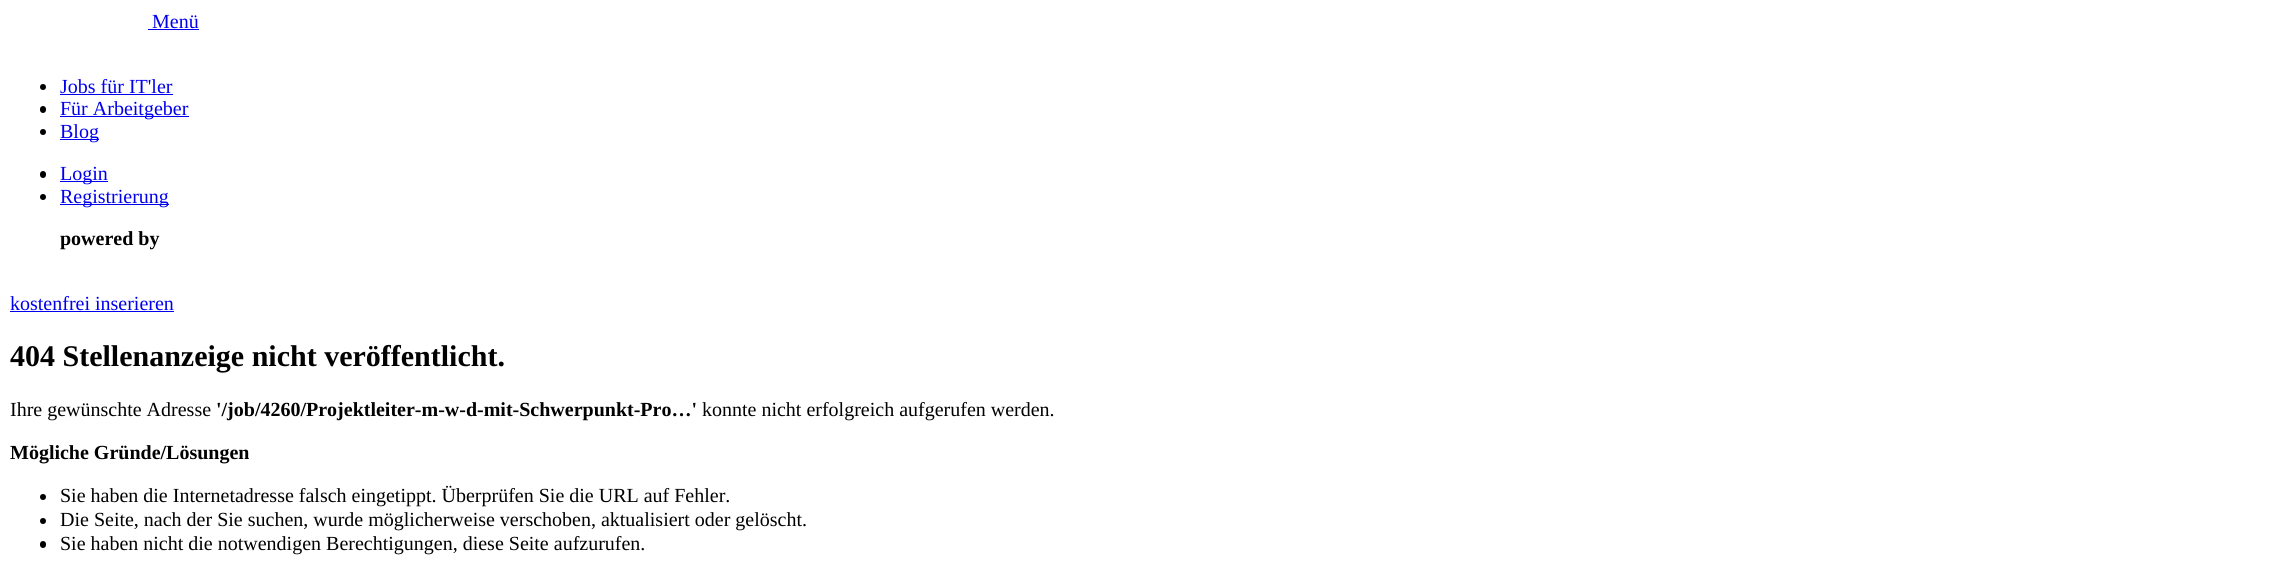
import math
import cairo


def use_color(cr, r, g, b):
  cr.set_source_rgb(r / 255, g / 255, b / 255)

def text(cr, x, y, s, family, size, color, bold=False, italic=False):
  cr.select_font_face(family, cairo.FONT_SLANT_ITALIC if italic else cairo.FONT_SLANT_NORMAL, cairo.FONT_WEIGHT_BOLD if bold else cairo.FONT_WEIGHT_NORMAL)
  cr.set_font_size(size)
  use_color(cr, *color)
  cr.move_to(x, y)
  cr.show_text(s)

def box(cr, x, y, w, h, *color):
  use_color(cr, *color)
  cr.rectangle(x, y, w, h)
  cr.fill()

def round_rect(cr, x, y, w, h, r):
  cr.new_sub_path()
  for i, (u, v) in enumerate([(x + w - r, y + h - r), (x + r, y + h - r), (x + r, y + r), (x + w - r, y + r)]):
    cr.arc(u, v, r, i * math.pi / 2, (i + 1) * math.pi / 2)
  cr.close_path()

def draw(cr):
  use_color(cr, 255, 255, 255)
  cr.paint()
  box(cr, 148, 29, 51, 1, 0, 0, 238)
  use_color(cr, 0, 0, 0)
  cr.arc(43, 87, 3, 0, 2 * math.pi)
  cr.fill()
  box(cr, 60, 94, 113, 1, 0, 0, 238)
  use_color(cr, 0, 0, 0)
  round_rect(cr, 40, 106, 6, 7, 3)
  cr.fill()
  box(cr, 60, 116, 129, 1, 0, 0, 238)
  use_color(cr, 0, 0, 0)
  cr.arc(43, 132, 3, 0, 2 * math.pi)
  cr.fill()
  box(cr, 60, 139, 39, 1, 0, 0, 238)
  use_color(cr, 0, 0, 0)
  round_rect(cr, 40, 171, 6, 7, 3)
  cr.fill()
  box(cr, 60, 181, 48, 1, 0, 0, 238)
  use_color(cr, 0, 0, 0)
  cr.arc(43, 197, 3, 0, 2 * math.pi)
  cr.fill()
  box(cr, 60, 204, 109, 1, 0, 0, 238)
  box(cr, 10, 311, 164, 1, 0, 0, 238)
  use_color(cr, 0, 0, 0)
  cr.arc(43, 497, 3, 0, 2 * math.pi)
  cr.fill()
  cr.arc(43, 521, 3, 0, 2 * math.pi)
  cr.fill()
  round_rect(cr, 40, 541, 6, 7, 3)
  cr.fill()
  text(cr, 152, 28, "Menü", "Liberation Serif", 20, (0, 0, 238))
  text(cr, 60, 93, "Jobs für IT'ler", "Liberation Serif", 20, (0, 0, 238))
  text(cr, 60, 115, "Für Arbeitgeber", "Liberation Serif", 20, (0, 0, 238))
  text(cr, 60, 138, "Blog", "Liberation Serif", 20, (0, 0, 238))
  text(cr, 60, 180, "Login", "Liberation Serif", 20, (0, 0, 238))
  text(cr, 60, 203, "Registrierung", "Liberation Serif", 20, (0, 0, 238))
  text(cr, 60, 245, "powered by", "Liberation Serif", 20, (0, 0, 0), bold=True)
  text(cr, 10, 310, "kostenfrei inserieren", "Liberation Serif", 20, (0, 0, 238))
  text(cr, 10, 366, "404 Stellenanzeige nicht veröffentlicht.", "Liberation Serif", 30, (0, 0, 0), bold=True)
  text(cr, 10, 416, "Ihre gewünschte Adresse", "Liberation Serif", 20, (0, 0, 0))
  text(cr, 216, 416, "'/job/4260/Projektleiter-m-w-d-mit-Schwerpunkt-Pro…'", "Liberation Serif", 20, (0, 0, 0), bold=True)
  text(cr, 702, 416, "konnte nicht erfolgreich aufgerufen werden.", "Liberation Serif", 20, (0, 0, 0))
  text(cr, 10, 459, "Mögliche Gründe/Lösungen", "Liberation Serif", 20, (0, 0, 0), bold=True)
  text(cr, 60, 502, "Sie haben die Internetadresse falsch eingetippt. Überprüfen Sie die URL auf Fehler.", "Liberation Serif", 20, (0, 0, 0))
  text(cr, 60, 526, "Die Seite, nach der Sie suchen, wurde möglicherweise verschoben, aktualisiert oder gelöscht.", "Liberation Serif", 20, (0, 0, 0))
  text(cr, 60, 550, "Sie haben nicht die notwendigen Berechtigungen, diese Seite aufzurufen.", "Liberation Serif", 20, (0, 0, 0))


surface = cairo.ImageSurface(cairo.FORMAT_RGB24, 2274, 586)
cr = cairo.Context(surface)
options = cairo.FontOptions()
options.set_hint_metrics(cairo.HINT_METRICS_OFF)
options.set_hint_style(cairo.HINT_STYLE_NONE)
cr.set_font_options(options)
cr.set_miter_limit(4)
draw(cr)
surface.write_to_png("out.png")
